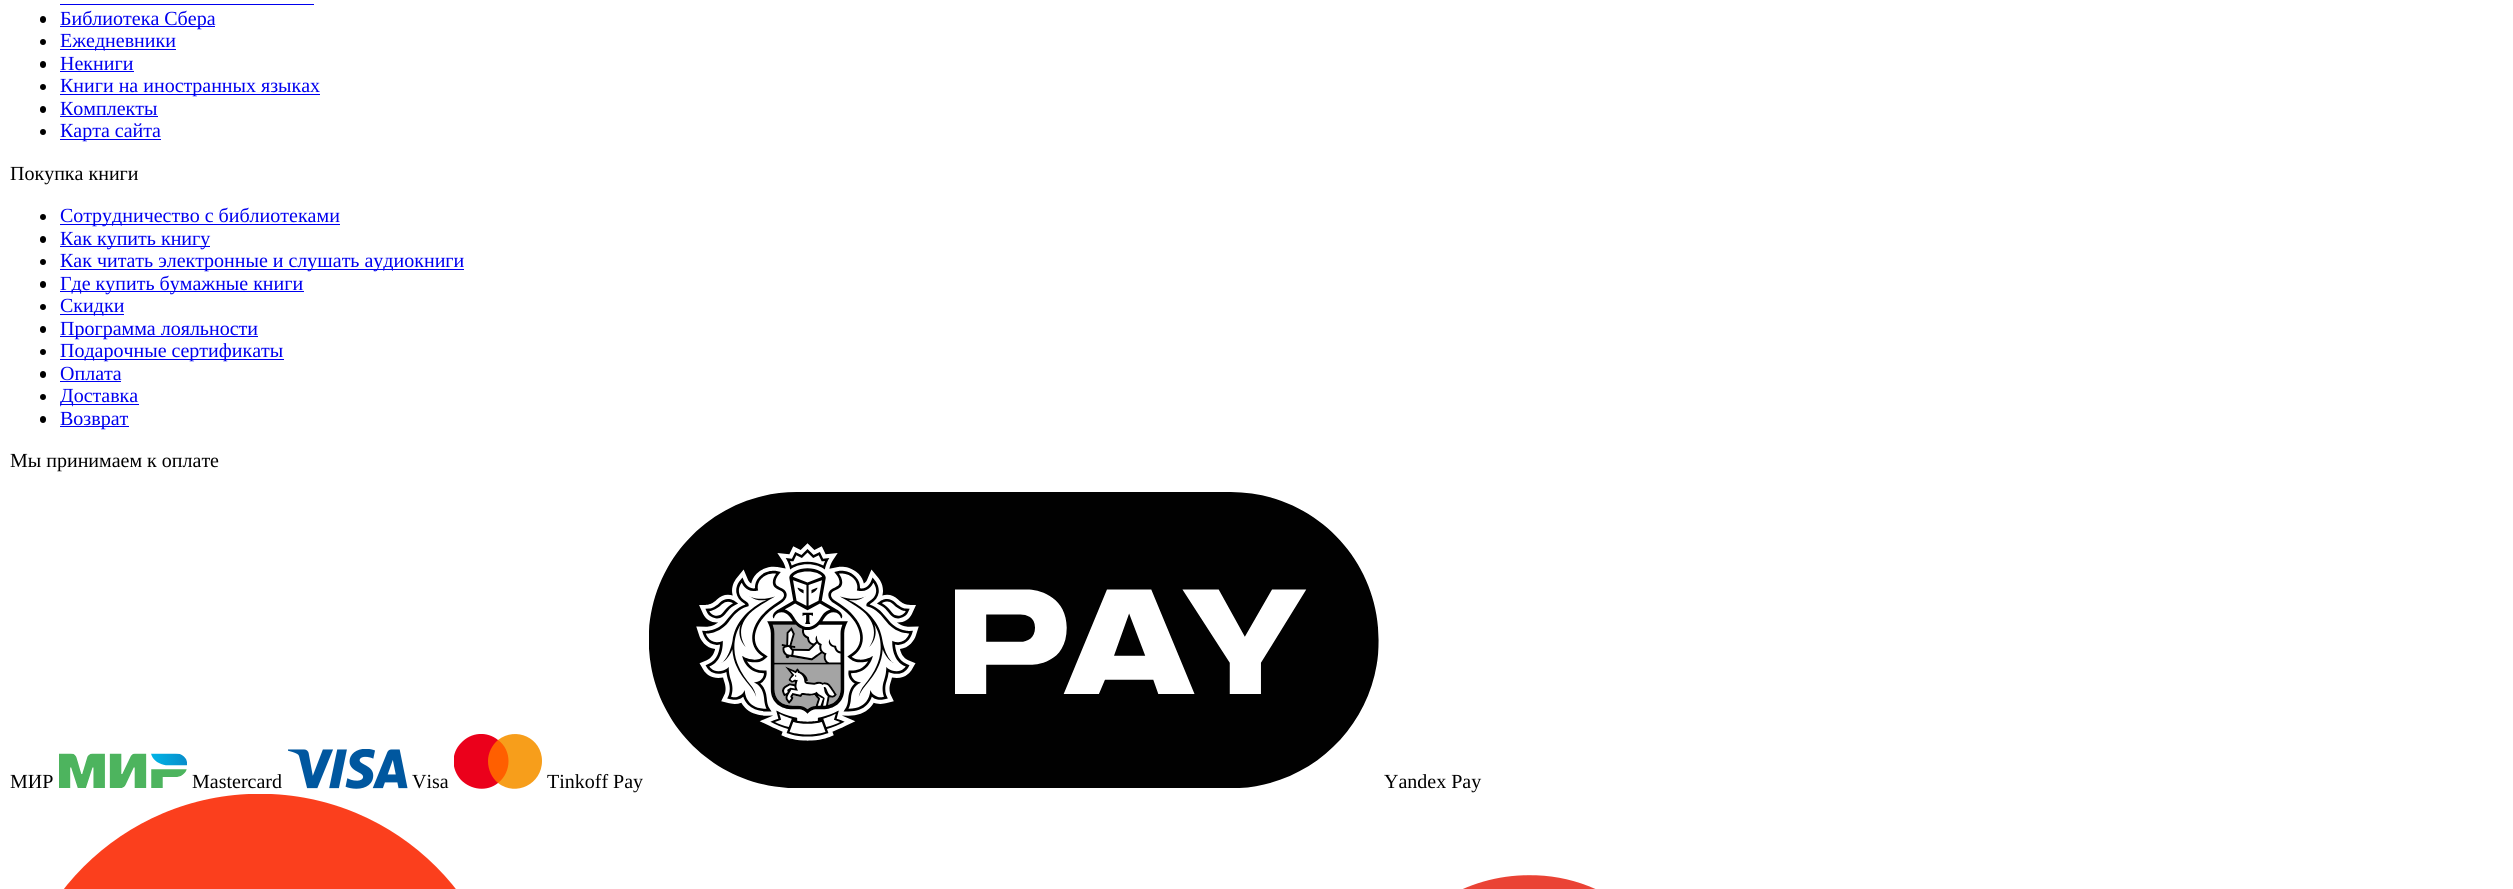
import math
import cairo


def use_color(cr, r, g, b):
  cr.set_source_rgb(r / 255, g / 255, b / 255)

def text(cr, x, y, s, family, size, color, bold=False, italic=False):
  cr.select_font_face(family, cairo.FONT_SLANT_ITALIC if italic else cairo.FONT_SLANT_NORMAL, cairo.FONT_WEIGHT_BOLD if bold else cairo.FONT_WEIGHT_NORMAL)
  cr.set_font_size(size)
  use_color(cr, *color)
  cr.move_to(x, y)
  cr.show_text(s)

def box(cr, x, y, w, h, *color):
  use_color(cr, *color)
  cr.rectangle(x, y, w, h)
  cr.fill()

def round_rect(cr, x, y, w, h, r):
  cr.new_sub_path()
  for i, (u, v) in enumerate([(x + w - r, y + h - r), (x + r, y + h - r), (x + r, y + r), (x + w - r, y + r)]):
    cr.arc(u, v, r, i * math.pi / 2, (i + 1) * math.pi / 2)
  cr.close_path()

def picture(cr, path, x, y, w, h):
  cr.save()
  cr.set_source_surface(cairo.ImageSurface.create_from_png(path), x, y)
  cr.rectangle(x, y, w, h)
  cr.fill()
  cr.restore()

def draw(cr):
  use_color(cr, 255, 255, 255)
  cr.paint()
  box(cr, 60, 4, 254, 1, 0, 0, 238)
  use_color(cr, 0, 0, 0)
  round_rect(cr, 40, 16, 6, 7, 3)
  cr.fill()
  box(cr, 60, 26, 155, 1, 0, 0, 238)
  use_color(cr, 0, 0, 0)
  cr.arc(43, 42, 3, 0, 2 * math.pi)
  cr.fill()
  box(cr, 60, 49, 116, 1, 0, 0, 238)
  use_color(cr, 0, 0, 0)
  round_rect(cr, 40, 61, 6, 7, 3)
  cr.fill()
  box(cr, 60, 71, 74, 1, 0, 0, 238)
  use_color(cr, 0, 0, 0)
  cr.arc(43, 87, 3, 0, 2 * math.pi)
  cr.fill()
  box(cr, 60, 94, 260, 1, 0, 0, 238)
  use_color(cr, 0, 0, 0)
  round_rect(cr, 40, 106, 6, 7, 3)
  cr.fill()
  box(cr, 60, 116, 98, 1, 0, 0, 238)
  use_color(cr, 0, 0, 0)
  cr.arc(43, 132, 3, 0, 2 * math.pi)
  cr.fill()
  box(cr, 60, 139, 101, 1, 0, 0, 238)
  use_color(cr, 0, 0, 0)
  cr.arc(43, 217, 3, 0, 2 * math.pi)
  cr.fill()
  box(cr, 60, 224, 280, 1, 0, 0, 238)
  use_color(cr, 0, 0, 0)
  round_rect(cr, 40, 236, 6, 7, 3)
  cr.fill()
  box(cr, 60, 246, 150, 1, 0, 0, 238)
  use_color(cr, 0, 0, 0)
  cr.arc(43, 262, 3, 0, 2 * math.pi)
  cr.fill()
  box(cr, 60, 269, 404, 1, 0, 0, 238)
  use_color(cr, 0, 0, 0)
  round_rect(cr, 40, 281, 6, 7, 3)
  cr.fill()
  box(cr, 60, 291, 244, 1, 0, 0, 238)
  use_color(cr, 0, 0, 0)
  cr.arc(43, 307, 3, 0, 2 * math.pi)
  cr.fill()
  box(cr, 60, 314, 64, 1, 0, 0, 238)
  use_color(cr, 0, 0, 0)
  round_rect(cr, 40, 326, 6, 7, 3)
  cr.fill()
  box(cr, 60, 336, 198, 1, 0, 0, 238)
  use_color(cr, 0, 0, 0)
  cr.arc(43, 352, 3, 0, 2 * math.pi)
  cr.fill()
  box(cr, 60, 359, 224, 1, 0, 0, 238)
  use_color(cr, 0, 0, 0)
  round_rect(cr, 40, 371, 6, 7, 3)
  cr.fill()
  box(cr, 60, 381, 61, 1, 0, 0, 238)
  use_color(cr, 0, 0, 0)
  cr.arc(43, 397, 3, 0, 2 * math.pi)
  cr.fill()
  box(cr, 60, 404, 79, 1, 0, 0, 238)
  use_color(cr, 0, 0, 0)
  round_rect(cr, 40, 416, 6, 7, 3)
  cr.fill()
  box(cr, 60, 426, 69, 1, 0, 0, 238)
  picture(cr, "img_01.png", 59, 753, 128, 35)
  picture(cr, "img_02.png", 288, 749, 120, 40)
  box(cr, 488, 740, 21, 43, 255, 95, 0)
  cr.save()
  cr.rectangle(454, 734, 89, 55)
  cr.clip()
  use_color(cr, 235, 0, 27)
  cr.new_path()
  cr.move_to(488, 761)
  cr.curve_to(488, 753, 492, 745, 498, 740)
  cr.curve_to(487, 731, 471, 732, 461, 743)
  cr.curve_to(451, 753, 451, 769, 461, 780)
  cr.curve_to(471, 790, 487, 792, 498, 783)
  cr.curve_to(492, 778, 488, 770, 488, 761)
  cr.close_path()
  cr.fill()
  cr.restore()
  use_color(cr, 247, 158, 27)
  cr.new_path()
  cr.move_to(542, 761)
  cr.curve_to(542, 784, 516, 797, 498, 783)
  cr.curve_to(512, 772, 512, 750, 498, 740)
  cr.curve_to(516, 726, 542, 738, 542, 761)
  cr.close_path()
  cr.fill()
  picture(cr, "img_03.png", 649, 492, 730, 296)
  picture(cr, "img_04.png", 64, 794, 392, 95)
  picture(cr, "img_05.png", 1463, 875, 133, 14)
  text(cr, 60, 25, "Библиотека Сбера", "Liberation Serif", 20, (0, 0, 238))
  text(cr, 60, 47, "Ежедневники", "Liberation Serif", 20, (0, 0, 238))
  text(cr, 60, 70, "Некниги", "Liberation Serif", 20, (0, 0, 238))
  text(cr, 60, 92, "Книги на иностранных языках", "Liberation Serif", 20, (0, 0, 238))
  text(cr, 60, 115, "Комплекты", "Liberation Serif", 20, (0, 0, 238))
  text(cr, 60, 137, "Карта сайта", "Liberation Serif", 20, (0, 0, 238))
  text(cr, 10, 180, "Покупка книги", "Liberation Serif", 20, (0, 0, 0))
  text(cr, 60, 222, "Сотрудничество с библиотеками", "Liberation Serif", 20, (0, 0, 238))
  text(cr, 60, 245, "Как купить книгу", "Liberation Serif", 20, (0, 0, 238))
  text(cr, 60, 267, "Как читать электронные и слушать аудиокниги", "Liberation Serif", 20, (0, 0, 238))
  text(cr, 60, 290, "Где купить бумажные книги", "Liberation Serif", 20, (0, 0, 238))
  text(cr, 60, 312, "Скидки", "Liberation Serif", 20, (0, 0, 238))
  text(cr, 60, 335, "Программа лояльности", "Liberation Serif", 20, (0, 0, 238))
  text(cr, 60, 357, "Подарочные сертификаты", "Liberation Serif", 20, (0, 0, 238))
  text(cr, 60, 380, "Оплата", "Liberation Serif", 20, (0, 0, 238))
  text(cr, 60, 402, "Доставка", "Liberation Serif", 20, (0, 0, 238))
  text(cr, 60, 425, "Возврат", "Liberation Serif", 20, (0, 0, 238))
  text(cr, 10, 467, "Мы принимаем к оплате", "Liberation Serif", 20, (0, 0, 0))
  text(cr, 10, 788, "МИР", "Liberation Serif", 20, (0, 0, 0))
  text(cr, 192, 788, "Mastercard", "Liberation Serif", 20, (0, 0, 0))
  text(cr, 412, 788, "Visa", "Liberation Serif", 20, (0, 0, 0))
  text(cr, 547, 788, "Tinkoff Pay", "Liberation Serif", 20, (0, 0, 0))
  text(cr, 1384, 788, "Yandex Pay", "Liberation Serif", 20, (0, 0, 0))


surface = cairo.ImageSurface(cairo.FORMAT_RGB24, 2513, 889)
cr = cairo.Context(surface)
options = cairo.FontOptions()
options.set_hint_metrics(cairo.HINT_METRICS_OFF)
options.set_hint_style(cairo.HINT_STYLE_NONE)
cr.set_font_options(options)
cr.set_miter_limit(4)
draw(cr)
surface.write_to_png("out.png")
